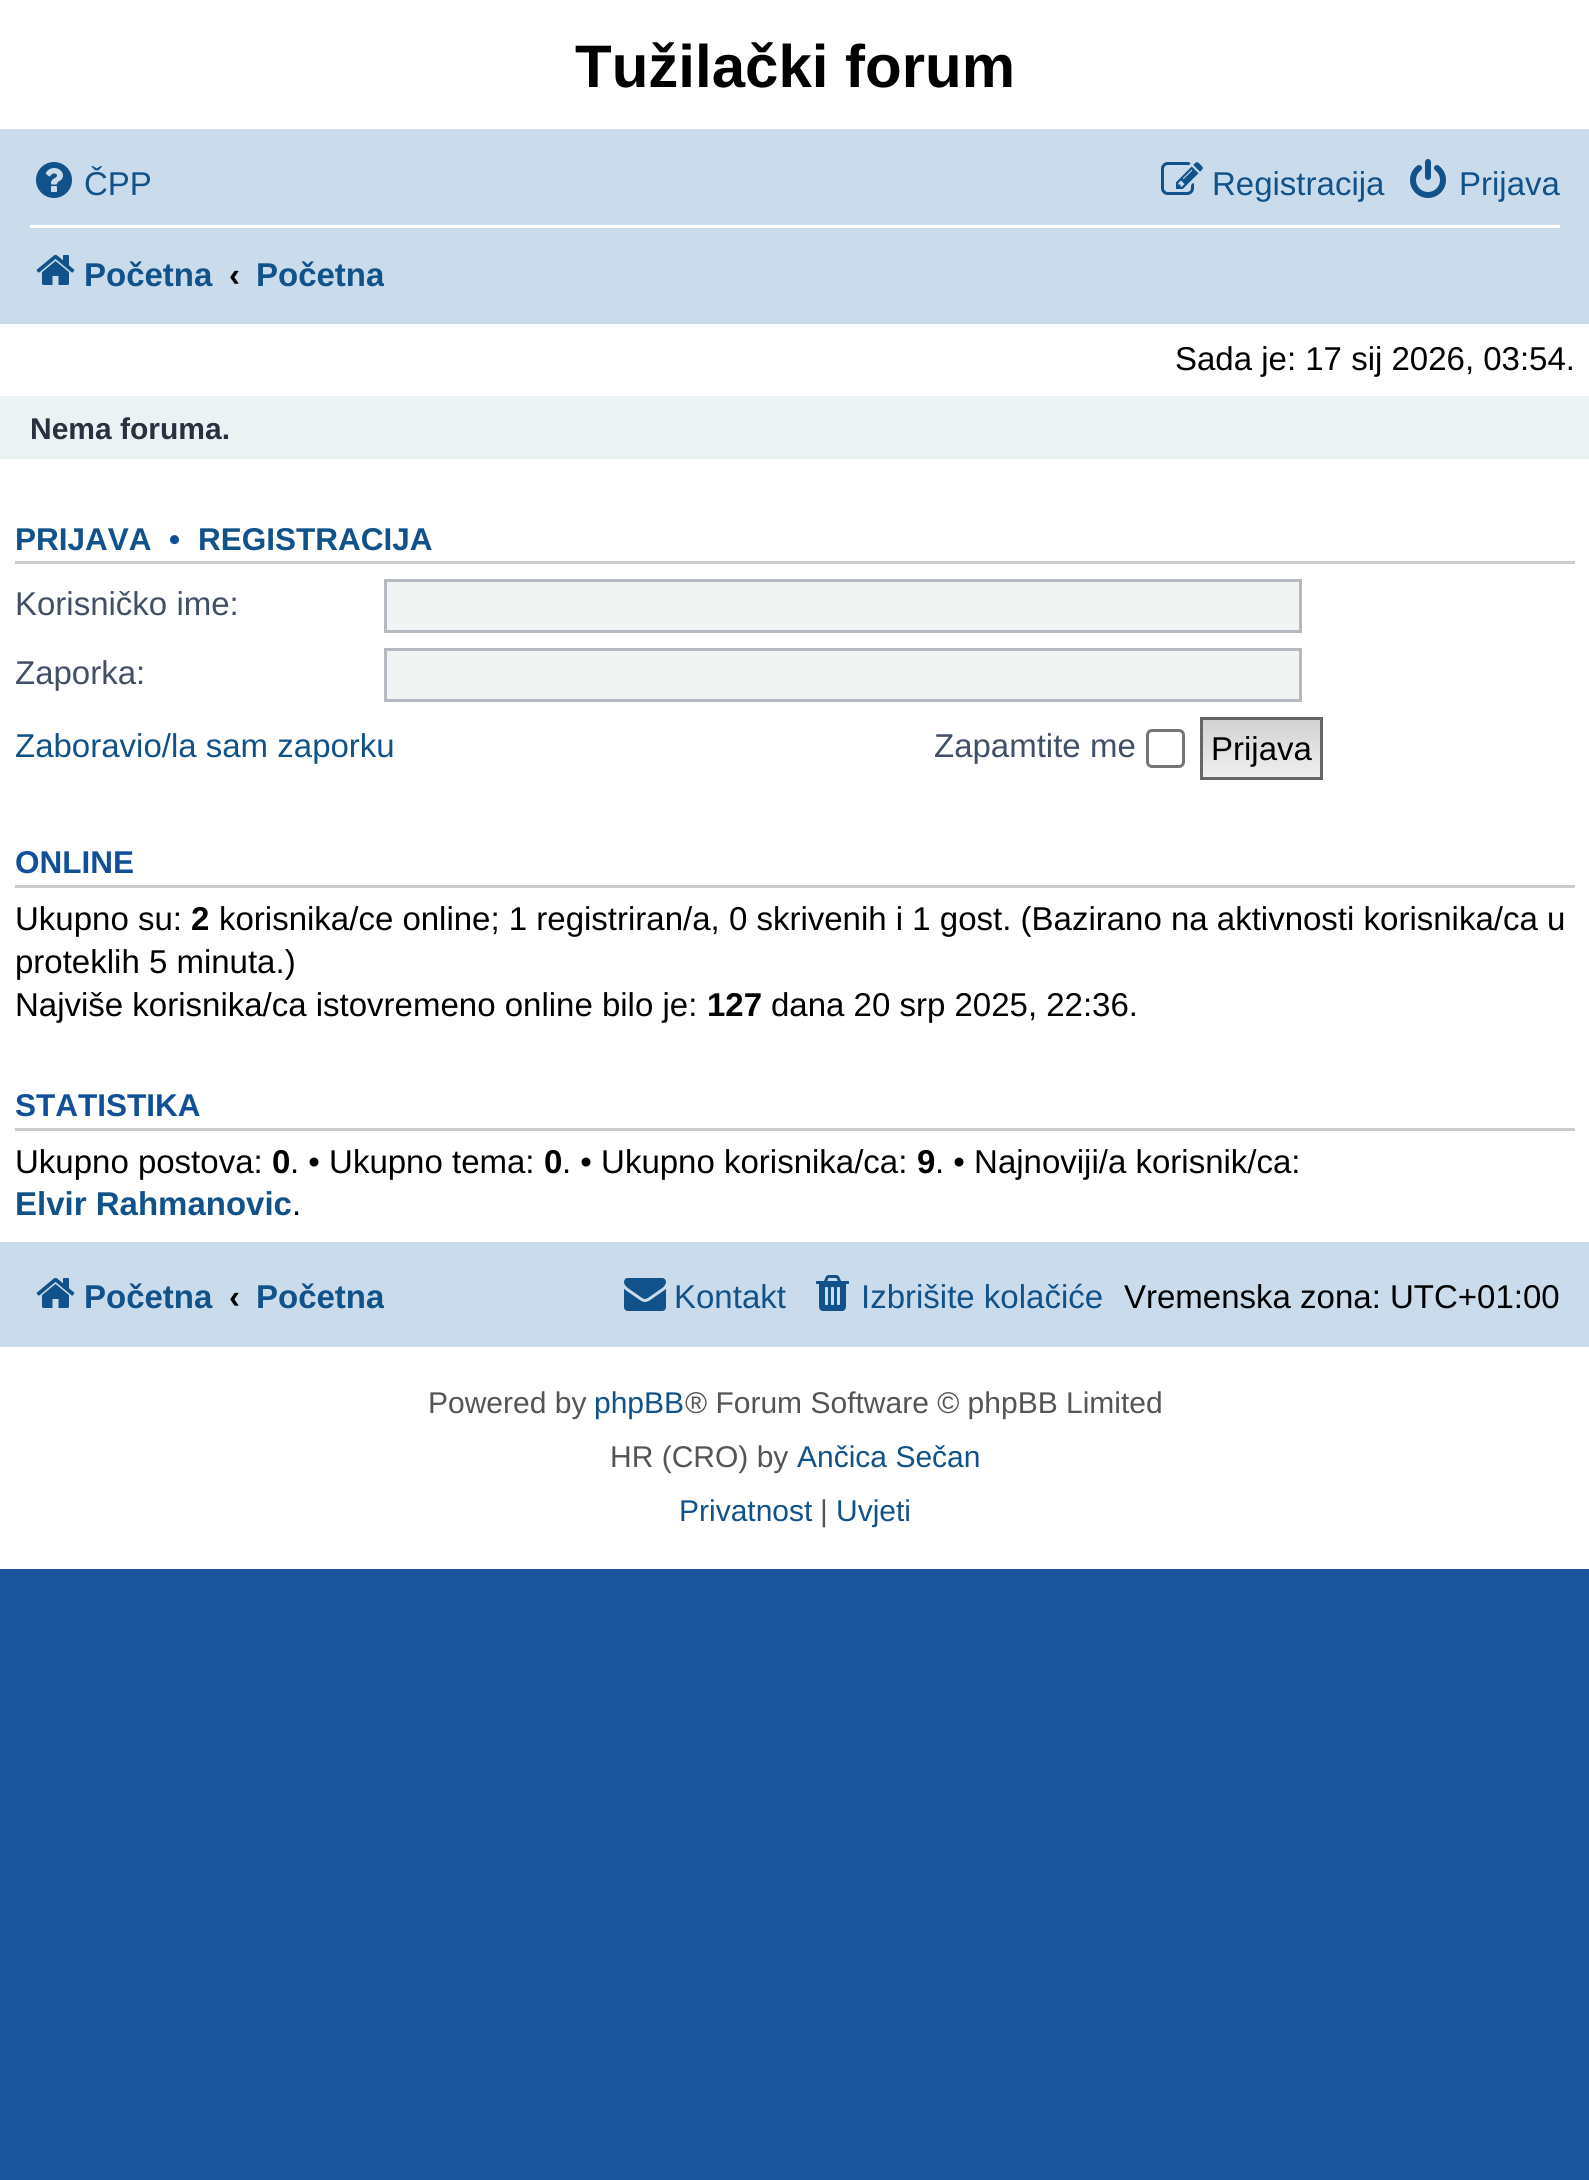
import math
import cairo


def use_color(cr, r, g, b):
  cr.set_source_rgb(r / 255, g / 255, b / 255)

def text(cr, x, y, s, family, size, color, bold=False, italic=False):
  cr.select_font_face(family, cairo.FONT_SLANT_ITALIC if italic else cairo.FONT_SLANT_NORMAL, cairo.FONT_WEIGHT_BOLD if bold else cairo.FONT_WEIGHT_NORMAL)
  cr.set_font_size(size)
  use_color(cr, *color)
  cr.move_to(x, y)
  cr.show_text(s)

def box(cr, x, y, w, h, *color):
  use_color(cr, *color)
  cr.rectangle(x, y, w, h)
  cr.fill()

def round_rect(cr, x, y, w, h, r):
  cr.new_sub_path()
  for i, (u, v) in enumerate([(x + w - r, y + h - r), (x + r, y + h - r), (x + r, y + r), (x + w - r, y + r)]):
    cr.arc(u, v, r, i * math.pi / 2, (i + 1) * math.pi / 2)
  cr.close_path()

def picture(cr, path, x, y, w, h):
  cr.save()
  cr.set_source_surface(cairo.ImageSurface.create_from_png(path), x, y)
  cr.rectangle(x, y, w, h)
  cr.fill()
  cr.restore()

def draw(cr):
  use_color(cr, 26, 85, 158)
  cr.paint()
  box(cr, 0, 0, 1589, 1569, 255, 255, 255)
  box(cr, 0, 129, 1589, 195, 202, 220, 235)
  picture(cr, "img_01.png", 36, 162, 36, 36)
  picture(cr, "img_02.png", 1161, 162, 42, 33)
  picture(cr, "img_03.png", 1410, 159, 36, 39)
  box(cr, 30, 225, 1530, 3, 255, 255, 255)
  picture(cr, "img_04.png", 36, 254, 39, 31)
  box(cr, 0, 396, 1589, 63, 236, 241, 243)
  box(cr, 15, 561, 1560, 3, 204, 204, 204)
  use_color(cr, 242, 243, 243)
  cr.rectangle(385.5, 580.5, 915, 51)
  cr.fill_preserve()
  use_color(cr, 180, 186, 192)
  cr.set_line_width(3)
  cr.stroke()
  use_color(cr, 242, 243, 243)
  cr.rectangle(385.5, 649.5, 915, 51)
  cr.fill_preserve()
  use_color(cr, 180, 186, 192)
  cr.stroke()
  round_rect(cr, 1147.5, 730.5, 36, 36, 4.5)
  use_color(cr, 118, 118, 118)
  cr.stroke()
  gradient = cairo.LinearGradient(1262, 720, 1262, 777)
  gradient.add_color_stop_rgba(0, 0.824, 0.824, 0.824, 1)
  gradient.add_color_stop_rgba(1, 0.937, 0.937, 0.937, 1)
  cr.set_source(gradient)
  cr.rectangle(1203, 720, 117, 57)
  cr.fill()
  cr.rectangle(1201.5, 718.5, 120, 60)
  use_color(cr, 102, 102, 102)
  cr.stroke()
  box(cr, 15, 885, 1560, 3, 204, 204, 204)
  box(cr, 15, 1128, 1560, 3, 204, 204, 204)
  box(cr, 0, 1242, 1589, 105, 202, 220, 235)
  picture(cr, "img_04.png", 36, 1277, 39, 31)
  picture(cr, "img_05.png", 624, 1278, 42, 33)
  picture(cr, "img_06.png", 816, 1275, 33, 36)
  text(cr, 575, 87, "Tužilački forum", "Liberation Sans", 60, (0, 0, 0), bold=True)
  text(cr, 84, 195, "ČPP", "Liberation Sans", 33, (16, 82, 137))
  text(cr, 1212, 195, "Registracija", "Liberation Sans", 33, (16, 82, 137))
  text(cr, 1459, 195, "Prijava", "Liberation Sans", 33, (16, 82, 137))
  text(cr, 84, 286, "Početna", "Liberation Sans", 33, (16, 82, 137), bold=True)
  text(cr, 229, 286, "‹", "Liberation Sans", 33, (0, 0, 0), bold=True)
  cr.save()
  cr.rectangle(255, 237, 129, 72)
  cr.clip()
  text(cr, 256, 286, "Početna", "Liberation Sans", 33, (16, 82, 137), bold=True)
  cr.restore()
  text(cr, 1175, 370, "Sada je: 17 sij 2026, 03:54.", "Liberation Sans", 33, (0, 0, 0))
  text(cr, 30, 439, "Nema foruma.", "Liberation Sans", 30, (40, 49, 63), bold=True)
  text(cr, 15, 550, "PRIJAVA", "Liberation Sans", 31.5, (16, 82, 137), bold=True)
  text(cr, 169, 550, "•", "Liberation Sans", 31.5, (17, 80, 152), bold=True)
  text(cr, 198, 550, "REGISTRACIJA", "Liberation Sans", 31.5, (16, 82, 137), bold=True)
  text(cr, 15, 615, "Korisničko ime:", "Liberation Sans", 33, (66, 80, 103))
  text(cr, 15, 684, "Zaporka:", "Liberation Sans", 33, (66, 80, 103))
  text(cr, 15, 757, "Zaboravio/la sam zaporku", "Liberation Sans", 33, (16, 82, 137))
  text(cr, 934, 757, "Zapamtite me", "Liberation Sans", 33, (66, 80, 103))
  text(cr, 1211, 760, "Prijava", "Liberation Sans", 33, (0, 0, 0))
  text(cr, 15, 873, "ONLINE", "Liberation Sans", 31.5, (17, 80, 152), bold=True)
  text(cr, 15, 930, "Ukupno su:", "Liberation Sans", 33, (0, 0, 0))
  text(cr, 191, 930, "2", "Liberation Sans", 33, (0, 0, 0), bold=True)
  text(cr, 219, 930, "korisnika/ce online; 1 registriran/a, 0 skrivenih i 1 gost. (Bazirano na aktivnosti korisnika/ca u", "Liberation Sans", 33, (0, 0, 0))
  text(cr, 15, 973, "proteklih 5 minuta.)", "Liberation Sans", 33, (0, 0, 0))
  text(cr, 15, 1016, "Najviše korisnika/ca istovremeno online bilo je:", "Liberation Sans", 33, (0, 0, 0))
  text(cr, 707, 1016, "127", "Liberation Sans", 33, (0, 0, 0), bold=True)
  text(cr, 771, 1016, "dana 20 srp 2025, 22:36.", "Liberation Sans", 33, (0, 0, 0))
  text(cr, 15, 1116, "STATISTIKA", "Liberation Sans", 31.5, (17, 80, 152), bold=True)
  text(cr, 15, 1173, "Ukupno postova:", "Liberation Sans", 33, (0, 0, 0))
  text(cr, 272, 1173, "0", "Liberation Sans", 33, (0, 0, 0), bold=True)
  text(cr, 290, 1173, ". • Ukupno tema:", "Liberation Sans", 33, (0, 0, 0))
  text(cr, 544, 1173, "0", "Liberation Sans", 33, (0, 0, 0), bold=True)
  text(cr, 562, 1173, ". • Ukupno korisnika/ca:", "Liberation Sans", 33, (0, 0, 0))
  text(cr, 917, 1173, "9", "Liberation Sans", 33, (0, 0, 0), bold=True)
  text(cr, 935, 1173, ". • Najnoviji/a korisnik/ca:", "Liberation Sans", 33, (0, 0, 0))
  text(cr, 15, 1215, "Elvir Rahmanovic", "Liberation Sans", 33, (16, 82, 137), bold=True)
  text(cr, 292, 1215, ".", "Liberation Sans", 33, (0, 0, 0))
  text(cr, 84, 1308, "Početna", "Liberation Sans", 33, (16, 82, 137), bold=True)
  text(cr, 229, 1308, "‹", "Liberation Sans", 33, (0, 0, 0), bold=True)
  cr.save()
  cr.rectangle(255, 1260, 129, 72)
  cr.clip()
  text(cr, 256, 1308, "Početna", "Liberation Sans", 33, (16, 82, 137), bold=True)
  cr.restore()
  text(cr, 674, 1308, "Kontakt", "Liberation Sans", 33, (16, 82, 137))
  text(cr, 861, 1308, "Izbrišite kolačiće", "Liberation Sans", 33, (16, 82, 137))
  text(cr, 1124, 1308, "Vremenska zona: UTC+01:00", "Liberation Sans", 33, (0, 0, 0))
  text(cr, 428, 1413, "Powered by", "Liberation Sans", 30, (85, 85, 85))
  text(cr, 594, 1413, "phpBB", "Liberation Sans", 30, (16, 82, 137))
  text(cr, 685, 1413, "® Forum Software © phpBB Limited", "Liberation Sans", 30, (85, 85, 85))
  text(cr, 610, 1467, "HR (CRO) by", "Liberation Sans", 30, (85, 85, 85))
  text(cr, 797, 1467, "Ančica Sečan", "Liberation Sans", 30, (16, 82, 137))
  text(cr, 679, 1521, "Privatnost", "Liberation Sans", 30, (16, 82, 137))
  text(cr, 820, 1521, "|", "Liberation Sans", 30, (85, 85, 85))
  text(cr, 836, 1521, "Uvjeti", "Liberation Sans", 30, (16, 82, 137))


surface = cairo.ImageSurface(cairo.FORMAT_RGB24, 1589, 2180)
cr = cairo.Context(surface)
options = cairo.FontOptions()
options.set_hint_metrics(cairo.HINT_METRICS_OFF)
options.set_hint_style(cairo.HINT_STYLE_NONE)
cr.set_font_options(options)
cr.set_miter_limit(4)
draw(cr)
surface.write_to_png("out.png")
